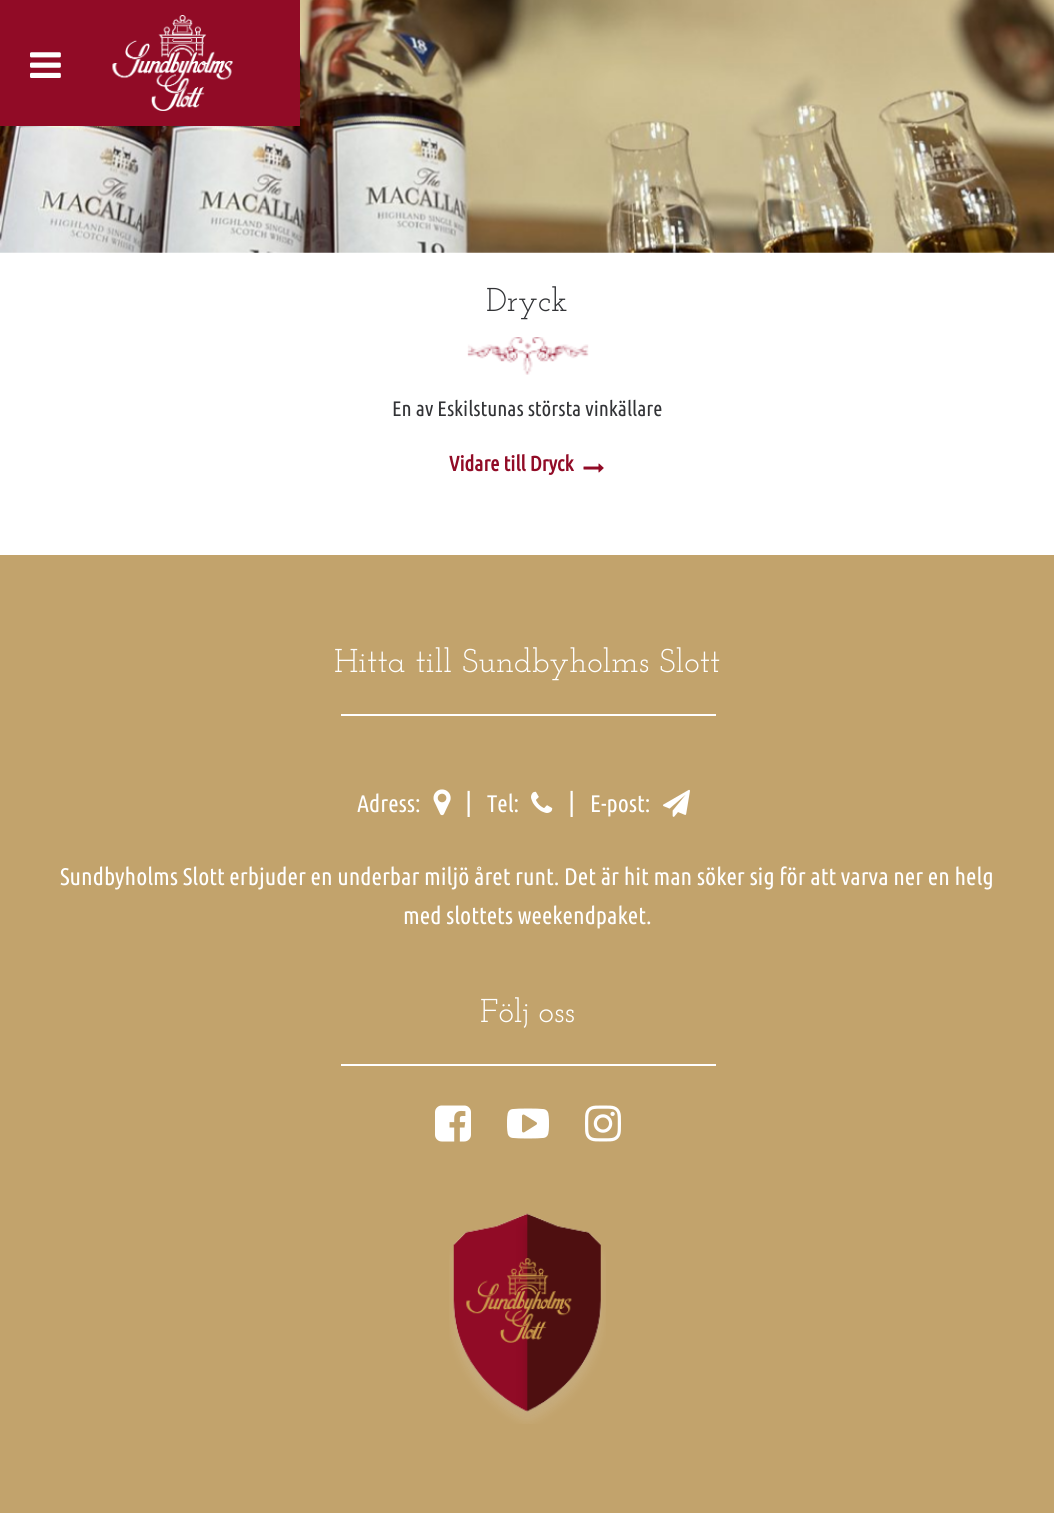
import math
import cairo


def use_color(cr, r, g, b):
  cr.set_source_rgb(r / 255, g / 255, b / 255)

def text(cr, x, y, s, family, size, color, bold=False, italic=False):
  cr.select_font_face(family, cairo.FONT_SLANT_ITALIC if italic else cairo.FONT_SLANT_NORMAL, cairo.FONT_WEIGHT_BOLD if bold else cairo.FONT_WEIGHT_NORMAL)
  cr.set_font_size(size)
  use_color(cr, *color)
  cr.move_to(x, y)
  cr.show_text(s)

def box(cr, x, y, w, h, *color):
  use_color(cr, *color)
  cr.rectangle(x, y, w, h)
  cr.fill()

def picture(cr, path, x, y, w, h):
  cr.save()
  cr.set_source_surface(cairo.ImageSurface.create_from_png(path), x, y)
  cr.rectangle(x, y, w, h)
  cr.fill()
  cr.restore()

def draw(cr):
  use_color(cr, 255, 255, 255)
  cr.paint()
  picture(cr, "img_03.png", 0, 0, 1054, 253)
  box(cr, 0, 0, 300, 126, 145, 11, 38)
  picture(cr, "img_01.png", 30, 52, 31, 26)
  picture(cr, "img_02.png", 112, 15, 121, 96)
  picture(cr, "img_04.png", 467, 337, 122, 38)
  picture(cr, "img_05.png", 583, 463, 21, 10)
  box(cr, 0, 555, 1054, 958, 194, 163, 108)
  box(cr, 341, 714, 375, 2, 255, 255, 255)
  picture(cr, "img_06.png", 433, 789, 18, 27)
  picture(cr, "img_07.png", 531, 791, 22, 22)
  picture(cr, "img_08.png", 663, 789, 27, 28)
  box(cr, 341, 1064, 375, 2, 255, 255, 255)
  picture(cr, "img_09.png", 435, 1105, 36, 37)
  picture(cr, "img_10.png", 507, 1108, 42, 31)
  picture(cr, "img_11.png", 585, 1105, 36, 37)
  picture(cr, "img_12.png", 449, 1213, 157, 211)
  text(cr, 486, 311, "Dryck", "Josefin Slab", 33, (50, 51, 54))
  text(cr, 392, 416, "En av Eskilstunas största vinkällare", "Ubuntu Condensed", 21, (50, 51, 54))
  text(cr, 449, 471, "Vidare till Dryck", "Ubuntu Condensed", 21, (145, 11, 38), bold=True)
  text(cr, 334, 672, "Hitta till Sundbyholms Slott", "Josefin Slab", 33, (255, 255, 255))
  text(cr, 357, 812, "Adress:", "Ubuntu Condensed", 24, (255, 255, 255))
  text(cr, 465, 812, "|", "Ubuntu Condensed", 27, (255, 255, 255))
  text(cr, 487, 812, "Tel:", "Ubuntu Condensed", 24, (255, 255, 255))
  text(cr, 568, 812, "|", "Ubuntu Condensed", 27, (255, 255, 255))
  text(cr, 590, 812, "E-post:", "Ubuntu Condensed", 24, (255, 255, 255))
  text(cr, 60, 885, "Sundbyholms Slott erbjuder en underbar miljö året runt. Det är hit man söker sig för att varva ner en helg", "Ubuntu Condensed", 24, (255, 255, 255))
  text(cr, 403, 924, "med slottets weekendpaket.", "Ubuntu Condensed", 24, (255, 255, 255))
  text(cr, 480, 1022, "Följ oss", "Josefin Slab", 33, (255, 255, 255))


surface = cairo.ImageSurface(cairo.FORMAT_RGB24, 1054, 1513)
cr = cairo.Context(surface)
options = cairo.FontOptions()
options.set_hint_metrics(cairo.HINT_METRICS_OFF)
options.set_hint_style(cairo.HINT_STYLE_NONE)
cr.set_font_options(options)
cr.set_miter_limit(4)
draw(cr)
surface.write_to_png("out.png")
